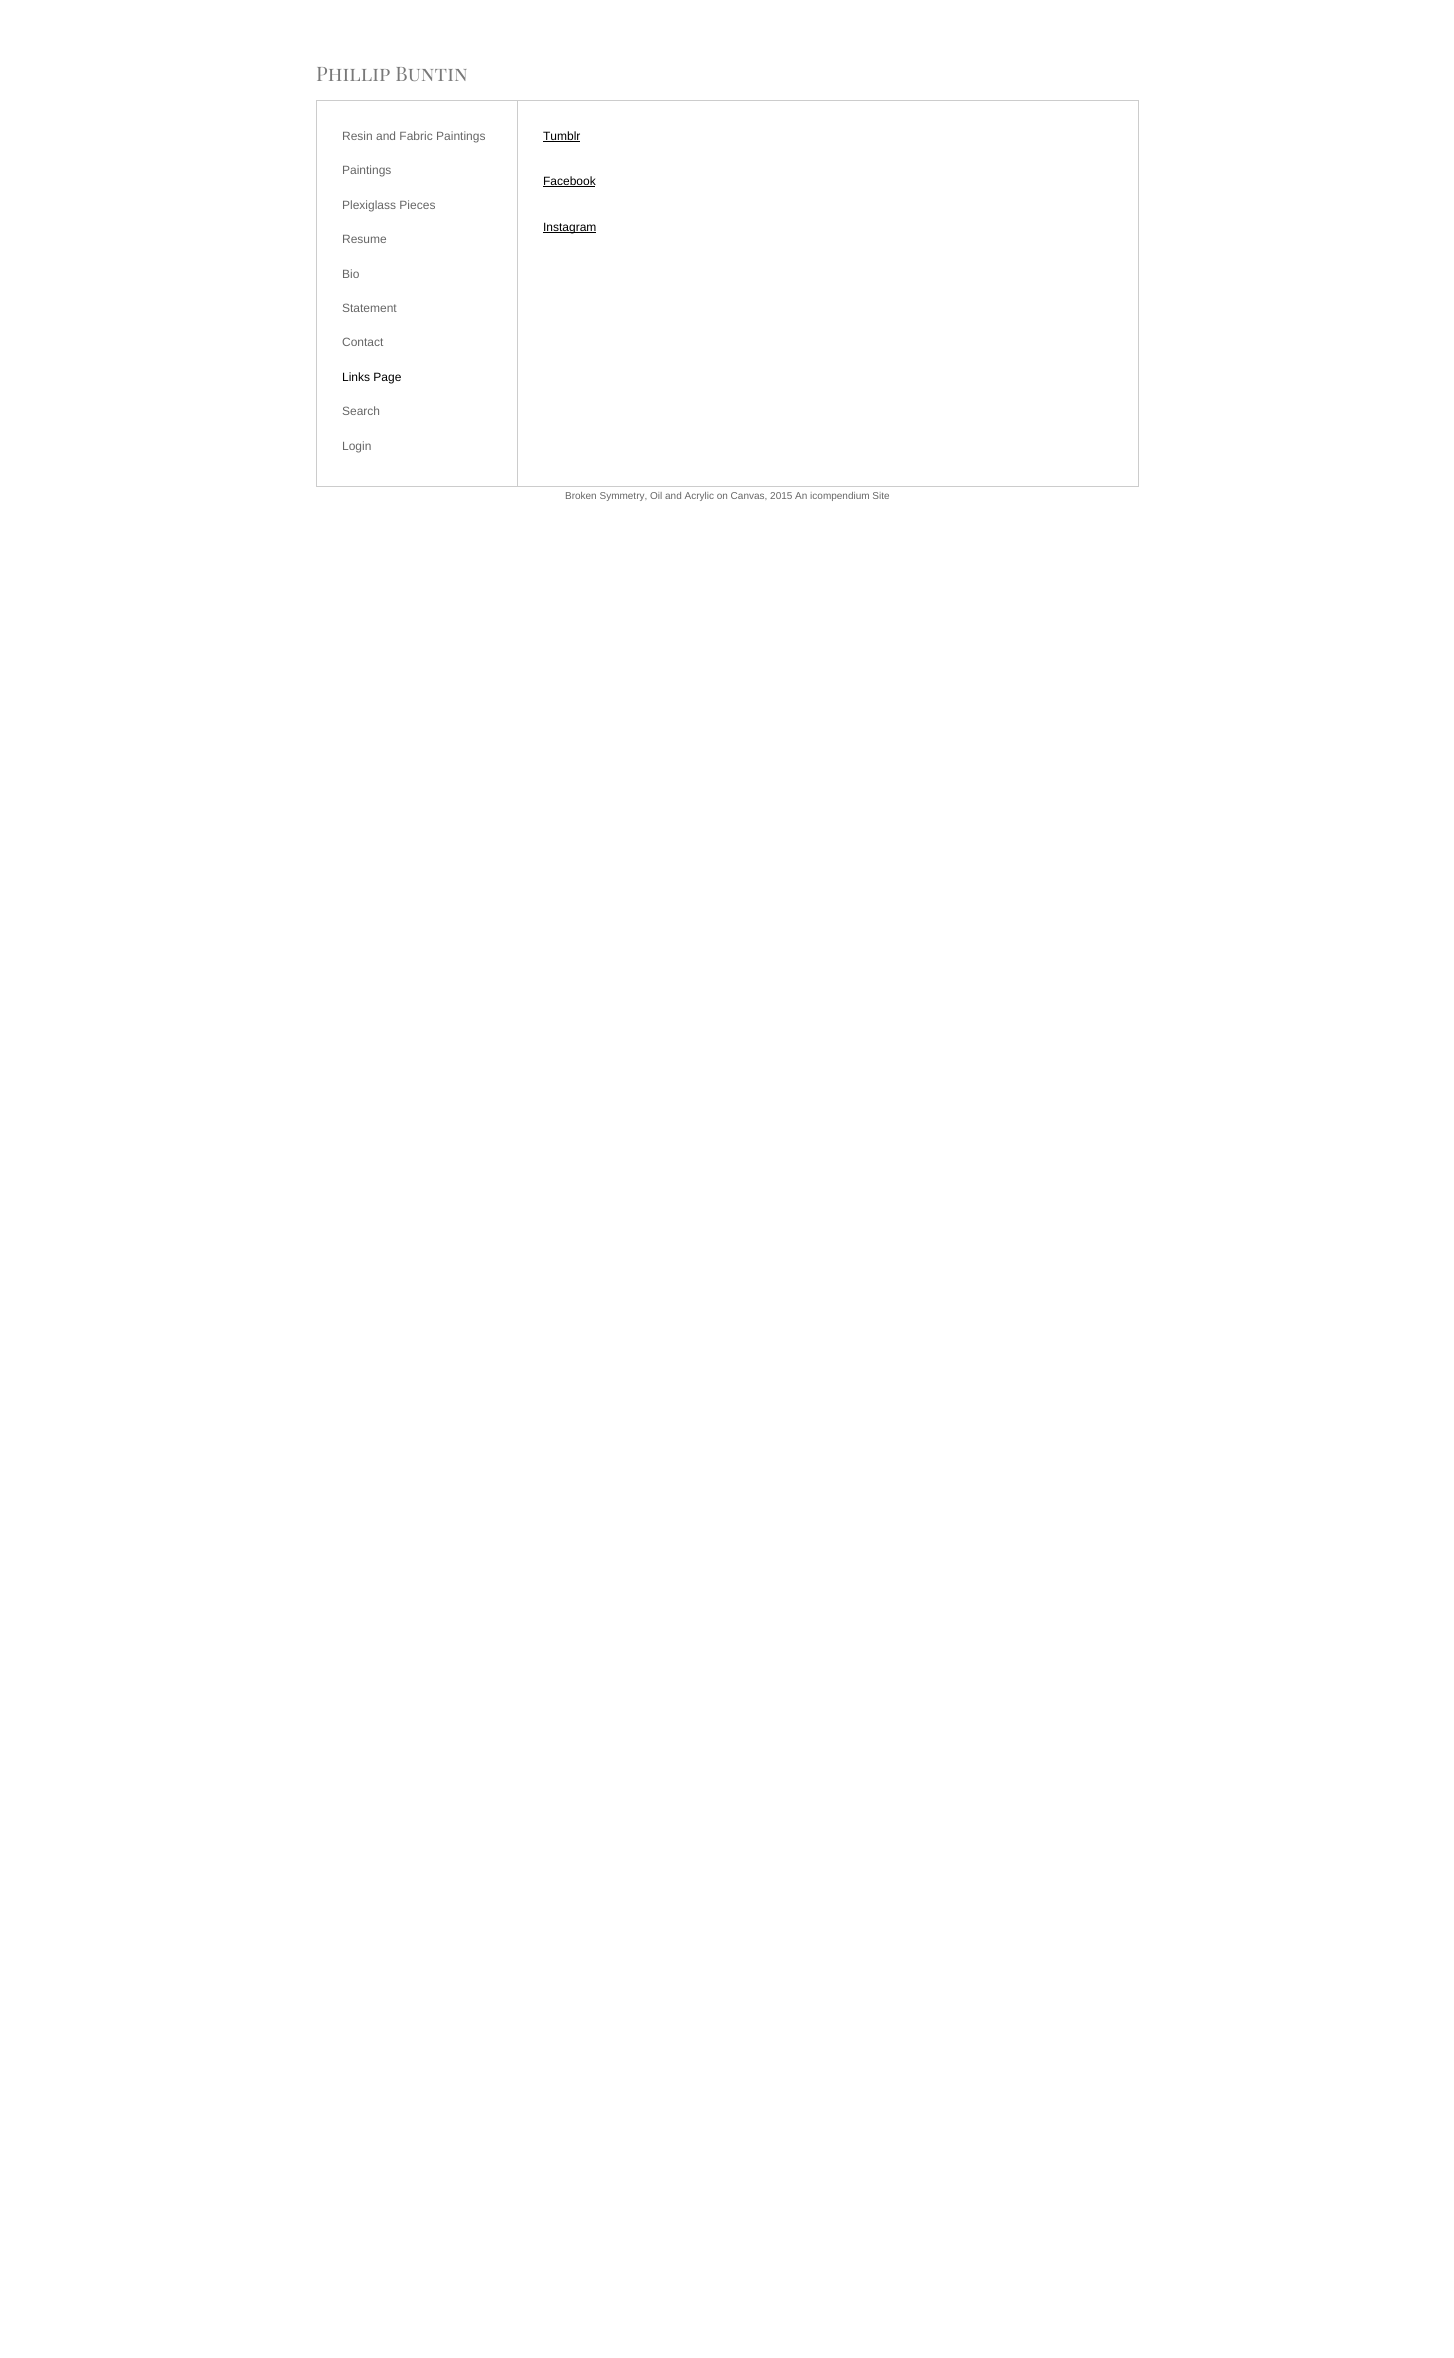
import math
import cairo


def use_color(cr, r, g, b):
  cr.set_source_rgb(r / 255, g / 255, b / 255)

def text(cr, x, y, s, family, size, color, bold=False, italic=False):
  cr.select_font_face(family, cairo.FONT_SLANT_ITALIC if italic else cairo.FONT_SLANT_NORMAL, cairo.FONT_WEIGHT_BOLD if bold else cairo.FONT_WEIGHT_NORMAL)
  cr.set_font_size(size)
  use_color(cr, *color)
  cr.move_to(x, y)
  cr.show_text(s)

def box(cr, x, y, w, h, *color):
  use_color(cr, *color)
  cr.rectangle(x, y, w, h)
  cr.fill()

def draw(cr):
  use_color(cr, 255, 255, 255)
  cr.paint()
  cr.rectangle(316.5, 100.5, 822, 386)
  use_color(cr, 204, 204, 204)
  cr.set_line_width(1)
  cr.stroke()
  box(cr, 517, 101, 1, 385, 204, 204, 204)
  box(cr, 543, 141, 37, 1, 0, 0, 0)
  box(cr, 543, 186, 52, 1, 0, 0, 0)
  box(cr, 543, 232, 53, 1, 0, 0, 0)
  text(cr, 316, 81, "Phillip Buntin", "Playfair Display SC", 20, (120, 120, 120))
  text(cr, 342, 140, "Resin and Fabric Paintings", "Liberation Sans", 12, (102, 102, 102))
  text(cr, 342, 174, "Paintings", "Liberation Sans", 12, (102, 102, 102))
  text(cr, 342, 209, "Plexiglass Pieces", "Liberation Sans", 12, (102, 102, 102))
  text(cr, 342, 243, "Resume", "Liberation Sans", 12, (102, 102, 102))
  text(cr, 342, 278, "Bio", "Liberation Sans", 12, (102, 102, 102))
  text(cr, 342, 312, "Statement", "Liberation Sans", 12, (102, 102, 102))
  text(cr, 342, 346, "Contact", "Liberation Sans", 12, (102, 102, 102))
  text(cr, 342, 381, "Links Page", "Liberation Sans", 12, (0, 0, 0))
  text(cr, 342, 415, "Search", "Liberation Sans", 12, (102, 102, 102))
  text(cr, 342, 450, "Login", "Liberation Sans", 12, (102, 102, 102))
  text(cr, 543, 140, "Tumblr", "Liberation Sans", 12, (0, 0, 0))
  text(cr, 543, 185, "Facebook", "Liberation Sans", 12, (0, 0, 0))
  text(cr, 543, 231, "Instagram", "Liberation Sans", 12, (0, 0, 0))
  text(cr, 565, 499, "Broken Symmetry, Oil and Acrylic on Canvas, 2015 An icompendium Site", "Liberation Sans", 10, (102, 102, 102))


surface = cairo.ImageSurface(cairo.FORMAT_RGB24, 1454, 2358)
cr = cairo.Context(surface)
options = cairo.FontOptions()
options.set_hint_metrics(cairo.HINT_METRICS_OFF)
options.set_hint_style(cairo.HINT_STYLE_NONE)
cr.set_font_options(options)
cr.set_miter_limit(4)
draw(cr)
surface.write_to_png("out.png")
